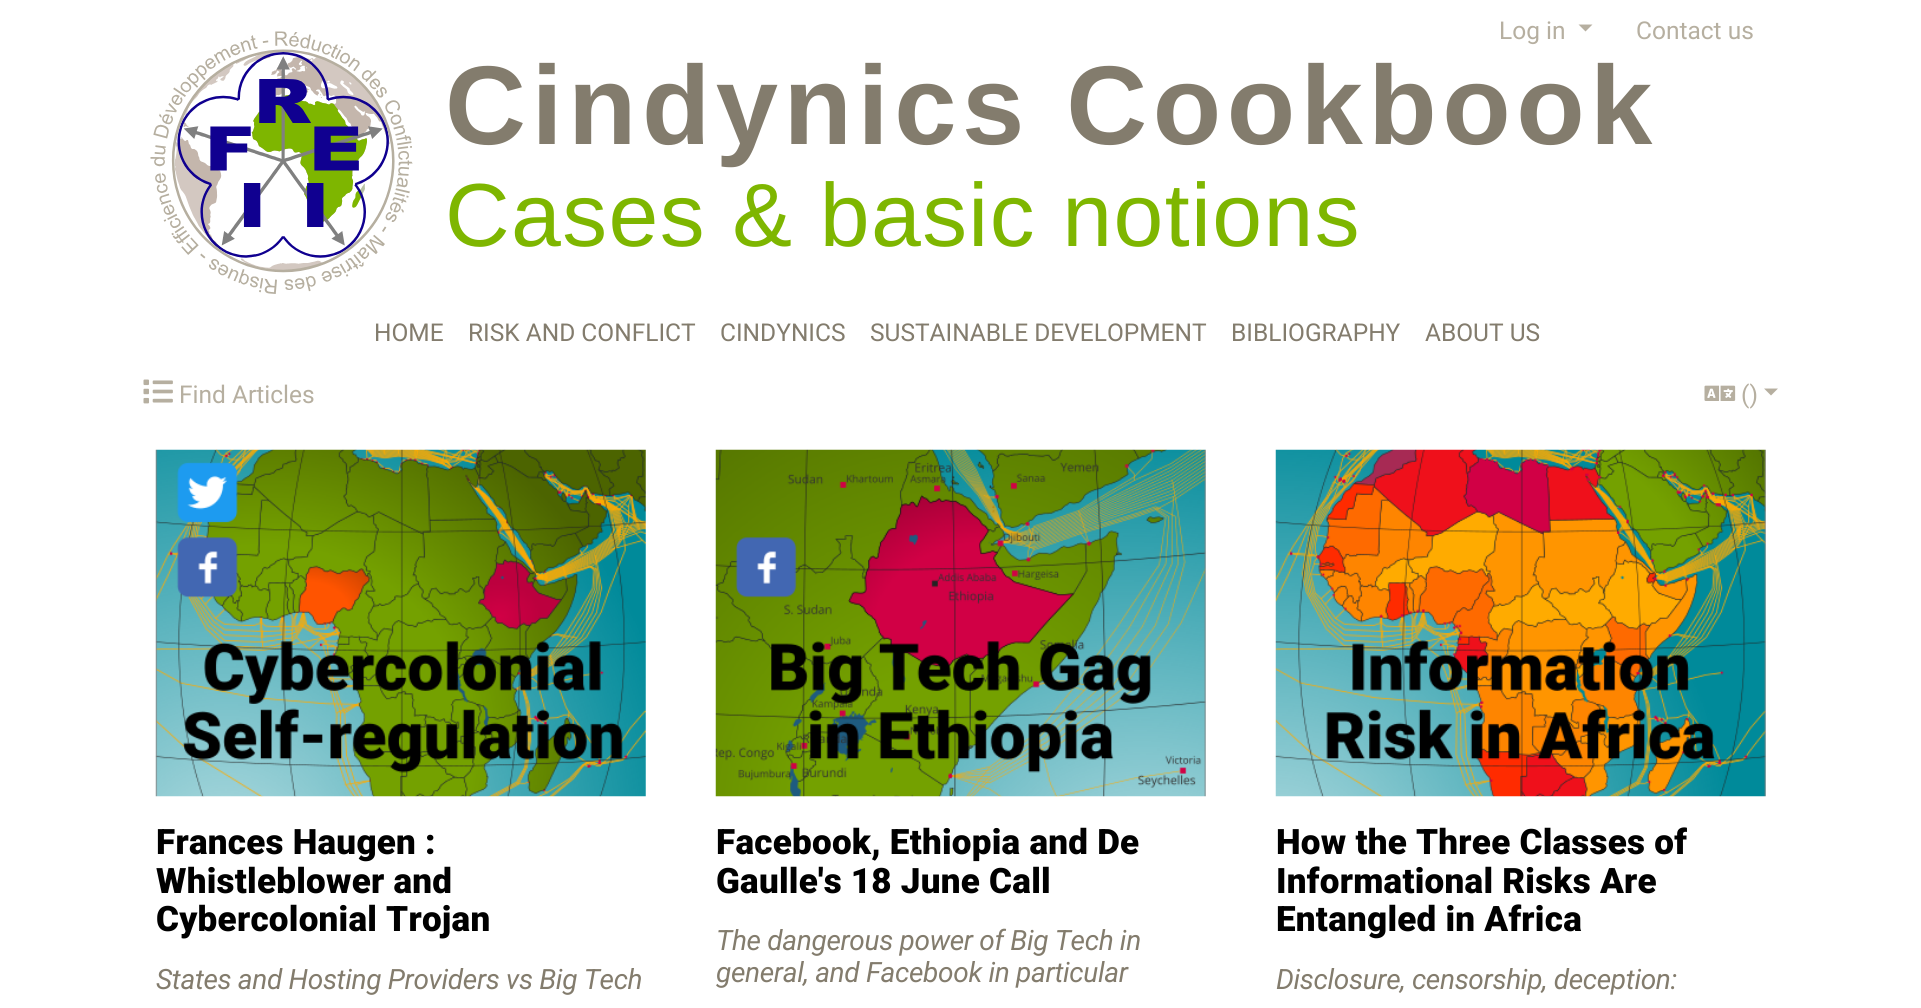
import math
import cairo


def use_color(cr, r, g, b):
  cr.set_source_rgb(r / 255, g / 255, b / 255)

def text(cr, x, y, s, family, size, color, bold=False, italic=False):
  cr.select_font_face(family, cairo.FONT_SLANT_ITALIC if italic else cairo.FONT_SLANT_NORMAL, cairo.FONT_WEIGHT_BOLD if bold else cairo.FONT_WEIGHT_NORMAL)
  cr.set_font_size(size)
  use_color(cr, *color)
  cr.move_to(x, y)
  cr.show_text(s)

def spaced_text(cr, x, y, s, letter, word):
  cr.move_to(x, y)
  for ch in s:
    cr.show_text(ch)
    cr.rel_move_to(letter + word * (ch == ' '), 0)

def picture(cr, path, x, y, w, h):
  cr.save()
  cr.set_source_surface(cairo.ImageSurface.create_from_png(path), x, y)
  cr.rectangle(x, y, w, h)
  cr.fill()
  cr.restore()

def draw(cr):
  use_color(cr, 255, 255, 255)
  cr.paint()
  use_color(cr, 182, 175, 160)
  cr.new_path()
  cr.move_to(1578.5, 24.5)
  cr.line_to(1592.5, 24.5)
  cr.line_to(1585.5, 31.5)
  cr.close_path()
  cr.fill()
  picture(cr, "img_01.png", 150, 31, 263, 263)
  picture(cr, "img_02.png", 143, 379, 30, 25)
  picture(cr, "img_03.png", 1704, 385, 32, 16)
  cr.new_path()
  cr.move_to(1764, 388.5)
  cr.line_to(1778, 388.5)
  cr.line_to(1771, 395.5)
  cr.close_path()
  cr.fill()
  picture(cr, "img_04.png", 155, 449, 491, 348)
  picture(cr, "img_05.png", 715, 449, 491, 348)
  picture(cr, "img_06.png", 1275, 449, 491, 348)
  text(cr, 1499, 39, "Log in", "Roboto", 24.5, (182, 175, 160))
  text(cr, 1636, 39, "Contact us", "Roboto", 24.5, (182, 175, 160))
  cr.select_font_face("Liberation Sans", cairo.FONT_SLANT_NORMAL, cairo.FONT_WEIGHT_BOLD)
  cr.set_font_size(112)
  use_color(cr, 131, 124, 109)
  spaced_text(cr, 445, 144, "Cindynics Cookbook", 5.5, 0)
  cr.select_font_face("Liberation Sans")
  cr.set_font_size(89.6)
  use_color(cr, 126, 182, 0)
  spaced_text(cr, 445, 246, "Cases & basic notions", 1.4, 0)
  text(cr, 374, 341, "HOME", "Roboto", 24.5, (131, 124, 109))
  text(cr, 468, 341, "RISK AND CONFLICT", "Roboto", 24.5, (131, 124, 109))
  text(cr, 720, 341, "CINDYNICS", "Roboto", 24.5, (131, 124, 109))
  text(cr, 870, 341, "SUSTAINABLE DEVELOPMENT", "Roboto", 24.5, (131, 124, 109))
  text(cr, 1231, 341, "BIBLIOGRAPHY", "Roboto", 24.5, (131, 124, 109))
  text(cr, 1425, 341, "ABOUT US", "Roboto", 24.5, (131, 124, 109))
  text(cr, 179, 403, "Find Articles", "Roboto", 24.5, (182, 175, 160))
  text(cr, 1741, 403, "()", "Roboto", 24.5, (182, 175, 160))
  cr.select_font_face("Roboto Black")
  cr.set_font_size(35)
  use_color(cr, 0, 0, 0)
  spaced_text(cr, 156, 854, "Frances Haugen :", 0.25, 0)
  spaced_text(cr, 156, 893, "Whistleblower and", 0.25, 0)
  spaced_text(cr, 156, 931, "Cybercolonial Trojan", 0.25, 0)
  cr.select_font_face("Roboto", cairo.FONT_SLANT_ITALIC)
  cr.set_font_size(28)
  use_color(cr, 131, 124, 109)
  spaced_text(cr, 156, 989, "States and Hosting Providers vs Big Tech", -0.3, 0)
  cr.select_font_face("Roboto Black")
  cr.set_font_size(35)
  use_color(cr, 0, 0, 0)
  spaced_text(cr, 716, 854, "Facebook, Ethiopia and De", 0.25, 0)
  spaced_text(cr, 716, 893, "Gaulle's 18 June Call", 0.25, 0)
  cr.select_font_face("Roboto", cairo.FONT_SLANT_ITALIC)
  cr.set_font_size(28)
  use_color(cr, 131, 124, 109)
  spaced_text(cr, 716, 950, "The dangerous power of Big Tech in", -0.3, 0)
  spaced_text(cr, 716, 982, "general, and Facebook in particular", -0.3, 0)
  cr.select_font_face("Roboto Black")
  cr.set_font_size(35)
  use_color(cr, 0, 0, 0)
  spaced_text(cr, 1276, 854, "How the Three Classes of", 0.25, 0)
  spaced_text(cr, 1276, 893, "Informational Risks Are", 0.25, 0)
  spaced_text(cr, 1276, 931, "Entangled in Africa", 0.25, 0)
  cr.select_font_face("Roboto", cairo.FONT_SLANT_ITALIC)
  cr.set_font_size(28)
  use_color(cr, 131, 124, 109)
  spaced_text(cr, 1276, 989, "Disclosure, censorship, deception:", -0.3, 0)


surface = cairo.ImageSurface(cairo.FORMAT_RGB24, 1921, 1008)
cr = cairo.Context(surface)
options = cairo.FontOptions()
options.set_hint_metrics(cairo.HINT_METRICS_OFF)
options.set_hint_style(cairo.HINT_STYLE_NONE)
cr.set_font_options(options)
cr.set_miter_limit(4)
draw(cr)
surface.write_to_png("out.png")
